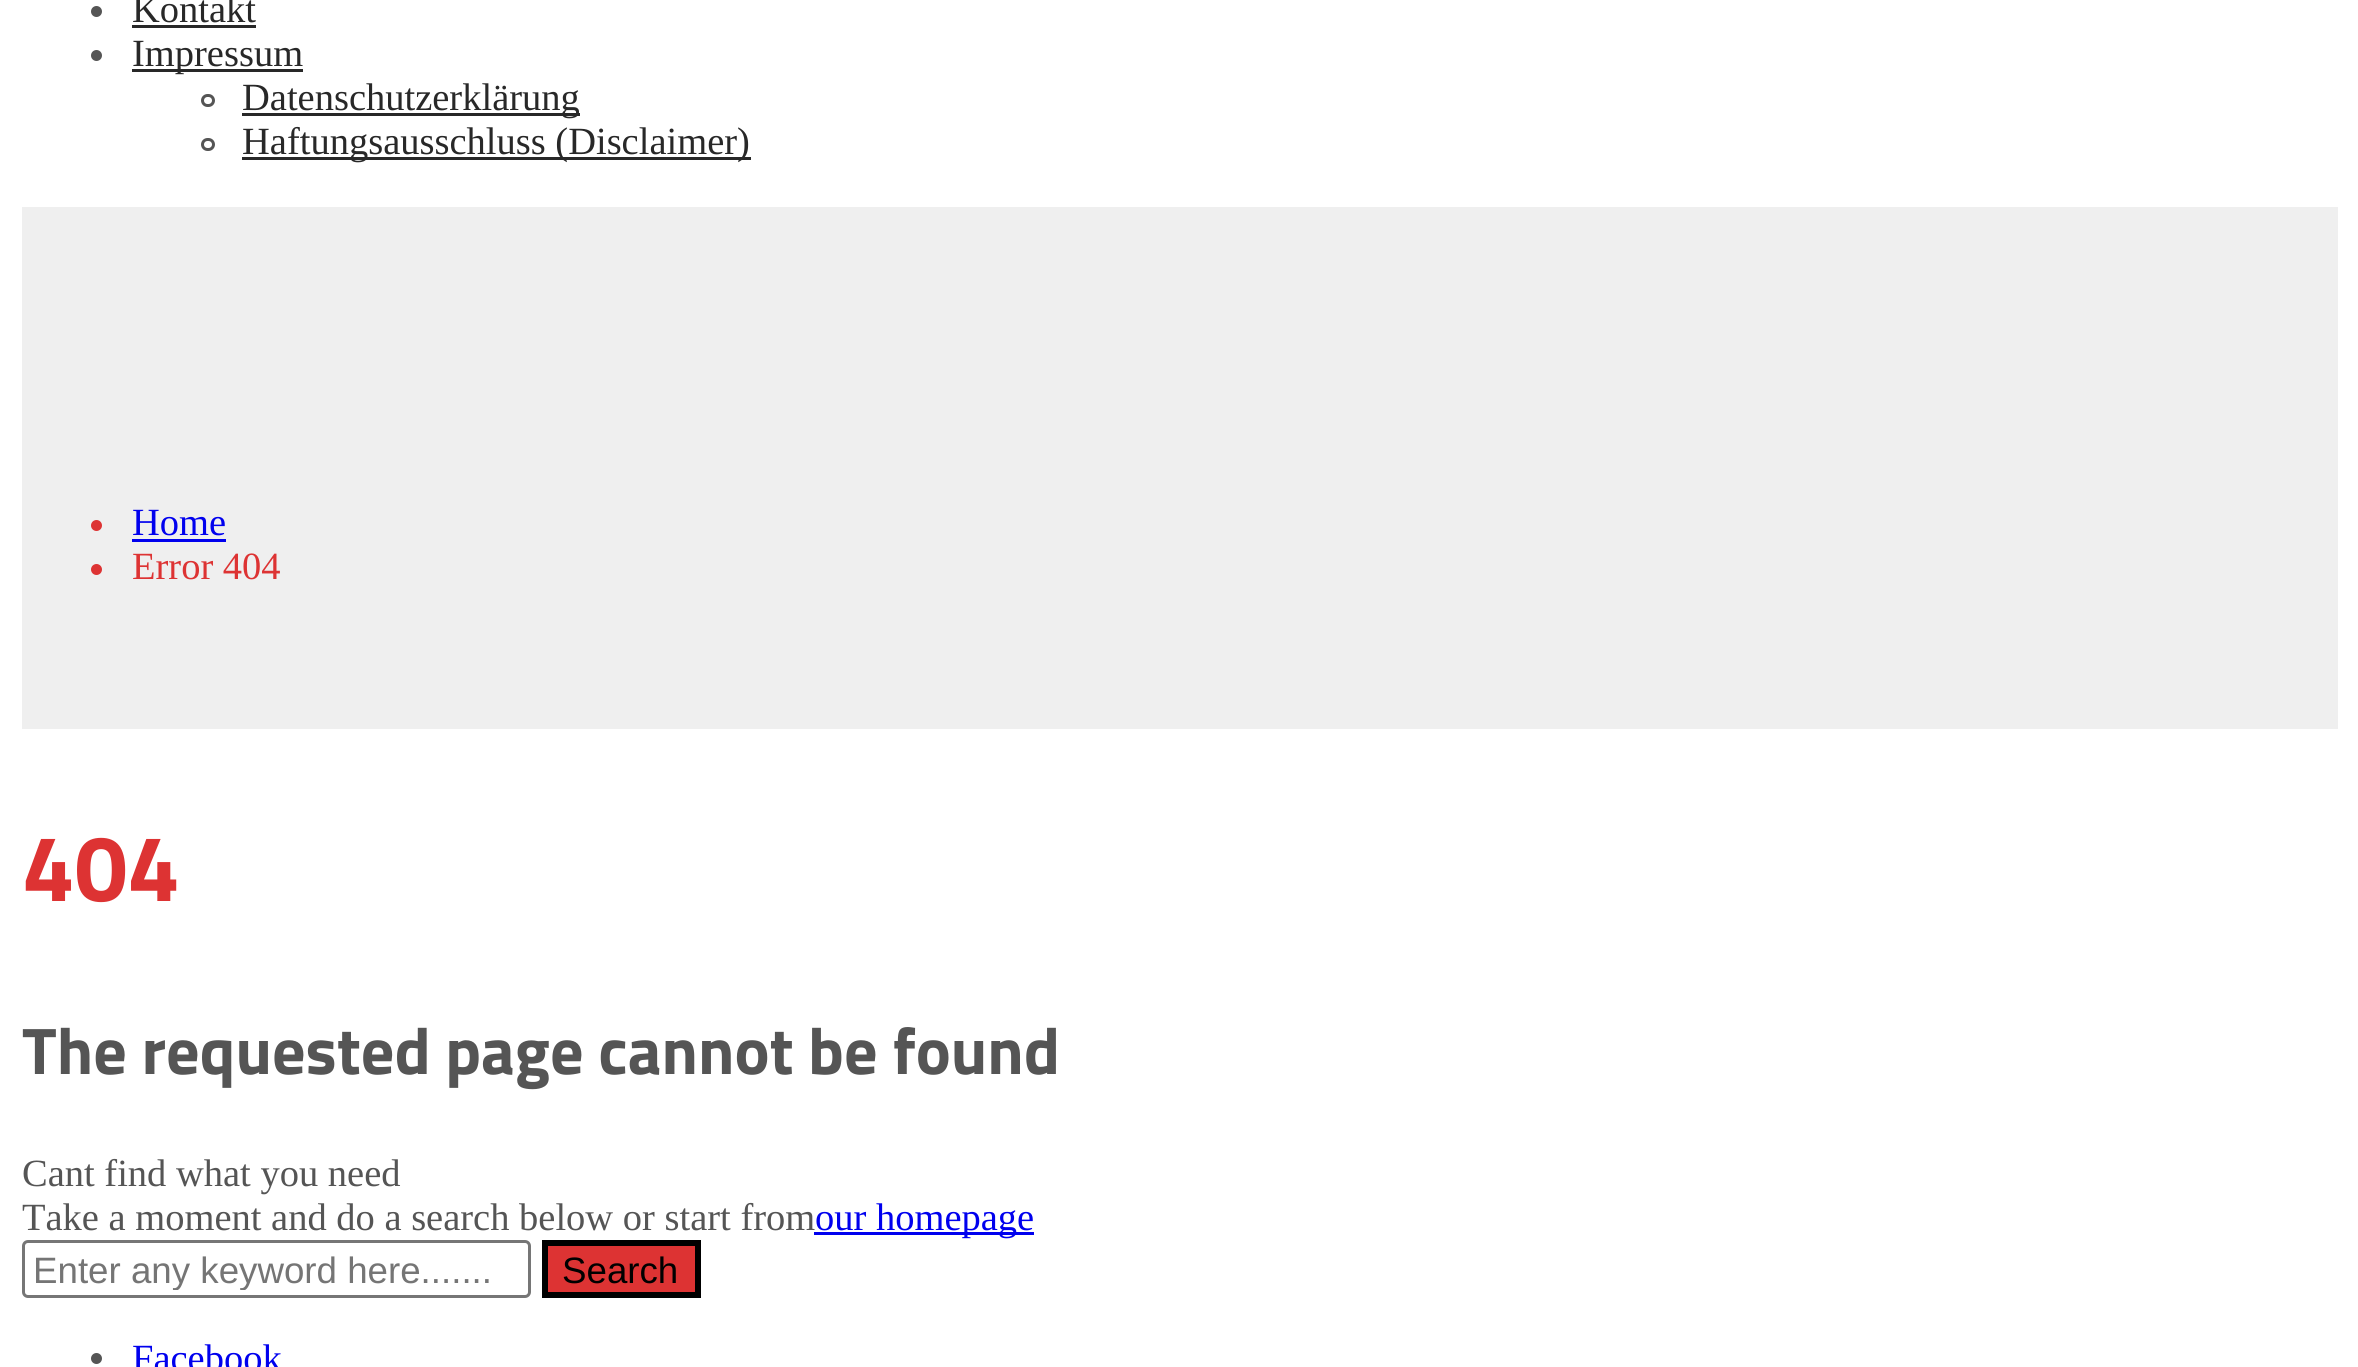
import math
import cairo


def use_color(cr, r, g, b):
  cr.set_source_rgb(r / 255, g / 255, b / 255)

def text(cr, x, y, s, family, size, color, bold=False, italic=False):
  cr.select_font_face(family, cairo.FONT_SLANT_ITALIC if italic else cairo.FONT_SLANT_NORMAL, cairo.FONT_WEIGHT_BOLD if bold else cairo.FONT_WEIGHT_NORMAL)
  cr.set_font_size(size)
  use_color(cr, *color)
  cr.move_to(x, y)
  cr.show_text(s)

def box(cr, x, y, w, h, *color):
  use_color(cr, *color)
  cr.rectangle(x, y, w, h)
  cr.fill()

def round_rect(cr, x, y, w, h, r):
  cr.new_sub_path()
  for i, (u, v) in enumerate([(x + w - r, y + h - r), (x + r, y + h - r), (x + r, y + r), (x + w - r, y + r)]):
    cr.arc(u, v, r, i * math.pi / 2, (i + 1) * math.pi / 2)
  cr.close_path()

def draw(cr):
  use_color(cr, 255, 255, 255)
  cr.paint()
  use_color(cr, 85, 85, 85)
  cr.arc(96.5, 11.5, 5.5, 0, 2 * math.pi)
  cr.fill()
  box(cr, 132, 25, 124, 3, 40, 40, 40)
  use_color(cr, 85, 85, 85)
  cr.arc(96.5, 55.5, 5.5, 0, 2 * math.pi)
  cr.fill()
  box(cr, 132, 69, 171, 3, 40, 40, 40)
  round_rect(cr, 202.5, 95.5, 11, 10, 5)
  use_color(cr, 85, 85, 85)
  cr.set_line_width(3)
  cr.stroke()
  box(cr, 242, 113, 338, 3, 40, 40, 40)
  round_rect(cr, 202.5, 139.5, 11, 10, 5)
  use_color(cr, 85, 85, 85)
  cr.stroke()
  box(cr, 242, 157, 509, 3, 40, 40, 40)
  box(cr, 22, 207, 2316, 522, 239, 239, 239)
  use_color(cr, 221, 51, 51)
  cr.arc(96.5, 525.5, 5.5, 0, 2 * math.pi)
  cr.fill()
  box(cr, 132, 539, 94, 3, 0, 0, 238)
  use_color(cr, 221, 51, 51)
  cr.arc(96.5, 569.5, 5.5, 0, 2 * math.pi)
  cr.fill()
  box(cr, 814, 1232, 220, 3, 0, 0, 238)
  round_rect(cr, 23.5, 1241.5, 506, 55, 4.5)
  use_color(cr, 118, 118, 118)
  cr.stroke()
  use_color(cr, 221, 51, 51)
  cr.rectangle(545, 1243, 153, 52)
  cr.fill_preserve()
  use_color(cr, 0, 0, 0)
  cr.set_line_width(6)
  cr.stroke()
  use_color(cr, 85, 85, 85)
  cr.arc(96.5, 1358.5, 5.5, 0, 2 * math.pi)
  cr.fill()
  text(cr, 132, 22, "Kontakt", "Liberation Serif", 38.5, (40, 40, 40))
  text(cr, 132, 66, "Impressum", "Liberation Serif", 38.5, (40, 40, 40))
  text(cr, 242, 110, "Datenschutzerklärung", "Liberation Serif", 38.5, (40, 40, 40))
  text(cr, 242, 154, "Haftungsausschluss (Disclaimer)", "Liberation Serif", 38.5, (40, 40, 40))
  text(cr, 132, 535, "Home", "Liberation Serif", 38.5, (0, 0, 238))
  text(cr, 132, 579, "Error 404", "Liberation Serif", 38.5, (221, 51, 51))
  text(cr, 22, 901, "404", "Titillium Web", 94, (221, 51, 51), bold=True)
  text(cr, 22, 1074, "The requested page cannot be found", "Titillium Web", 66, (85, 85, 85), bold=True)
  text(cr, 22, 1186, "Cant find what you need", "Liberation Serif", 38.5, (85, 85, 85))
  text(cr, 22, 1230, "Take a moment and do a search below or start from", "Liberation Serif", 38.5, (85, 85, 85))
  text(cr, 815, 1230, "our homepage", "Liberation Serif", 38.5, (0, 0, 238))
  cr.save()
  cr.rectangle(33, 1249, 487, 41)
  cr.clip()
  text(cr, 33, 1283, "Enter any keyword here.......", "Liberation Sans", 36.7, (117, 117, 117))
  cr.restore()
  text(cr, 562, 1283, "Search", "Liberation Sans", 36.7, (0, 0, 0))
  text(cr, 132, 1371, "Facebook", "Liberation Serif", 38.5, (0, 0, 238))


surface = cairo.ImageSurface(cairo.FORMAT_RGB24, 2358, 1367)
cr = cairo.Context(surface)
options = cairo.FontOptions()
options.set_hint_metrics(cairo.HINT_METRICS_OFF)
options.set_hint_style(cairo.HINT_STYLE_NONE)
cr.set_font_options(options)
cr.set_miter_limit(4)
draw(cr)
surface.write_to_png("out.png")
